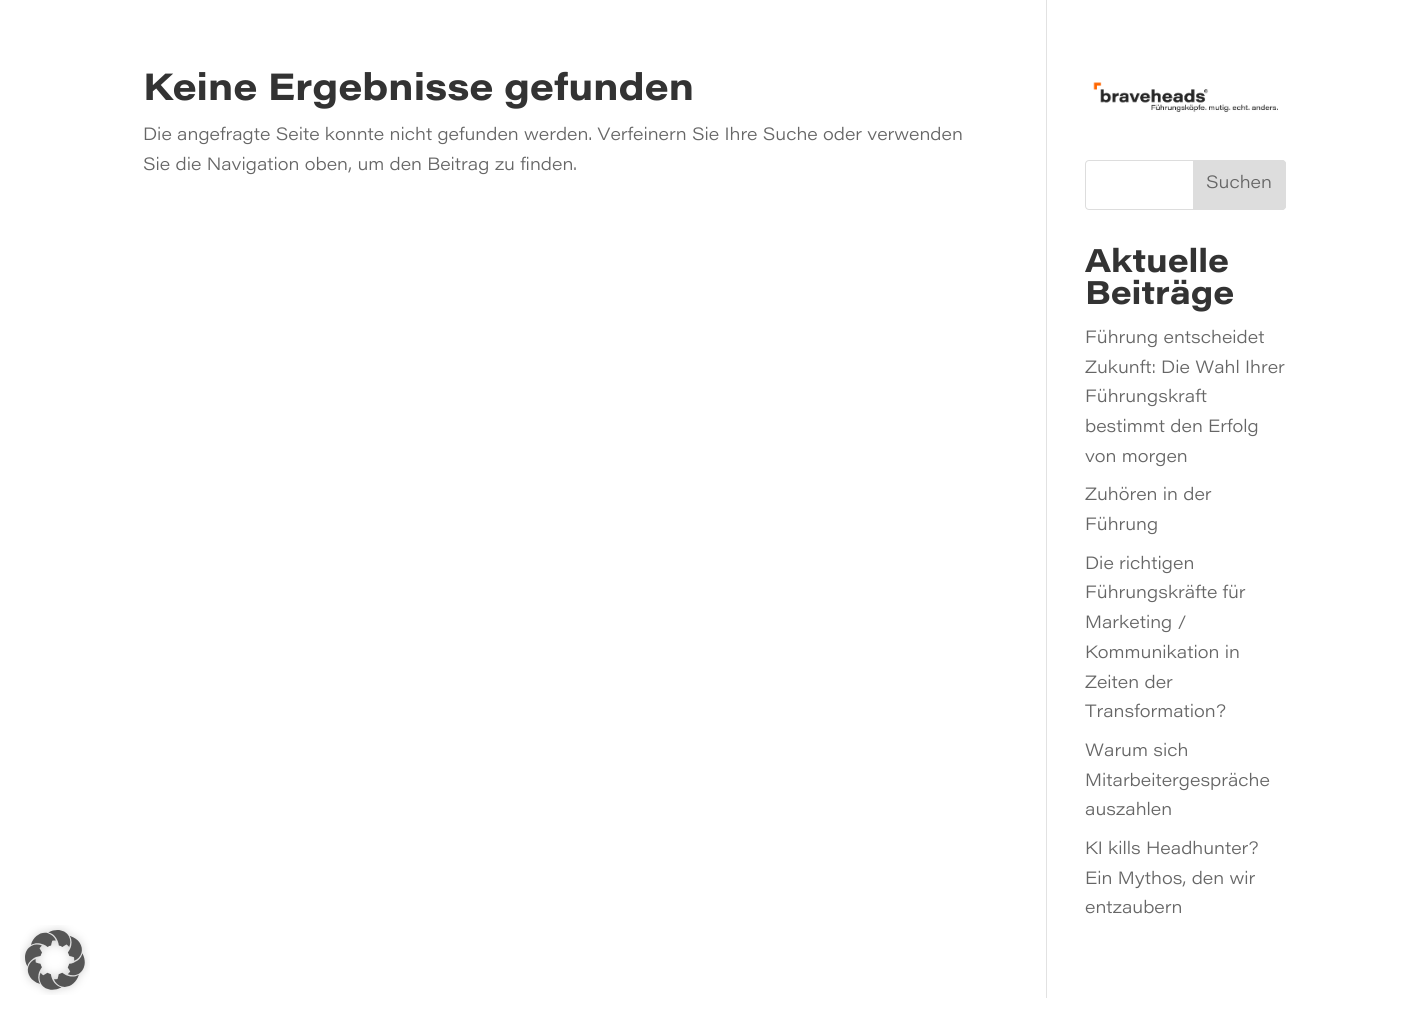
import math
import cairo


def use_color(cr, r, g, b):
  cr.set_source_rgb(r / 255, g / 255, b / 255)

def text(cr, x, y, s, family, size, color, bold=False, italic=False):
  cr.select_font_face(family, cairo.FONT_SLANT_ITALIC if italic else cairo.FONT_SLANT_NORMAL, cairo.FONT_WEIGHT_BOLD if bold else cairo.FONT_WEIGHT_NORMAL)
  cr.set_font_size(size)
  use_color(cr, *color)
  cr.move_to(x, y)
  cr.show_text(s)

def box(cr, x, y, w, h, *color):
  use_color(cr, *color)
  cr.rectangle(x, y, w, h)
  cr.fill()

def round_rect(cr, x, y, w, h, r):
  cr.new_sub_path()
  for i, (u, v) in enumerate([(x + w - r, y + h - r), (x + r, y + h - r), (x + r, y + r), (x + w - r, y + r)]):
    cr.arc(u, v, r, i * math.pi / 2, (i + 1) * math.pi / 2)
  cr.close_path()

def picture(cr, path, x, y, w, h):
  cr.save()
  cr.set_source_surface(cairo.ImageSurface.create_from_png(path), x, y)
  cr.rectangle(x, y, w, h)
  cr.fill()
  cr.restore()

def draw(cr):
  use_color(cr, 255, 255, 255)
  cr.paint()
  box(cr, 1046, 0, 1, 998, 226, 226, 226)
  picture(cr, "img_01.png", 1093, 82, 185, 31)
  round_rect(cr, 1085.5, 160.5, 200, 49, 3.5)
  use_color(cr, 221, 221, 221)
  cr.set_line_width(1)
  cr.stroke()
  cr.new_path()
  cr.move_to(1193.5, 160.5)
  cr.line_to(1282, 160.5)
  cr.curve_to(1284, 160.5, 1285.5, 162, 1285.5, 164)
  cr.line_to(1285.5, 206)
  cr.curve_to(1285.5, 208, 1284, 209.5, 1282, 209.5)
  cr.line_to(1193.5, 209.5)
  cr.close_path()
  cr.fill_preserve()
  cr.stroke()
  picture(cr, "img_02.png", 20, 925, 70, 70)
  text(cr, 143, 100, "Keine Ergebnisse gefunden", "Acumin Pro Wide", 37.5, (51, 51, 51), bold=True)
  text(cr, 143, 140, "Die angefragte Seite konnte nicht gefunden werden. Verfeinern Sie Ihre Suche oder verwenden", "Acumin Pro Wide Light", 17.5, (102, 102, 102))
  text(cr, 143, 170, "Sie die Navigation oben, um den Beitrag zu finden.", "Acumin Pro Wide Light", 17.5, (102, 102, 102))
  text(cr, 1206, 188, "Suchen", "Acumin Pro Wide Light", 17.5, (102, 102, 102))
  text(cr, 1085, 272, "Aktuelle", "Acumin Pro Wide", 32.5, (51, 51, 51), bold=True)
  text(cr, 1085, 304, "Beiträge", "Acumin Pro Wide", 32.5, (51, 51, 51), bold=True)
  text(cr, 1085, 343, "Führung entscheidet", "Acumin Pro Wide Light", 17.5, (102, 102, 102))
  text(cr, 1085, 373, "Zukunft: Die Wahl Ihrer", "Acumin Pro Wide Light", 17.5, (102, 102, 102))
  text(cr, 1085, 402, "Führungskraft", "Acumin Pro Wide Light", 17.5, (102, 102, 102))
  text(cr, 1085, 432, "bestimmt den Erfolg", "Acumin Pro Wide Light", 17.5, (102, 102, 102))
  text(cr, 1085, 462, "von morgen", "Acumin Pro Wide Light", 17.5, (102, 102, 102))
  text(cr, 1085, 500, "Zuhören in der", "Acumin Pro Wide Light", 17.5, (102, 102, 102))
  text(cr, 1085, 530, "Führung", "Acumin Pro Wide Light", 17.5, (102, 102, 102))
  text(cr, 1085, 569, "Die richtigen", "Acumin Pro Wide Light", 17.5, (102, 102, 102))
  text(cr, 1085, 598, "Führungskräfte für", "Acumin Pro Wide Light", 17.5, (102, 102, 102))
  text(cr, 1085, 628, "Marketing /", "Acumin Pro Wide Light", 17.5, (102, 102, 102))
  text(cr, 1085, 658, "Kommunikation in", "Acumin Pro Wide Light", 17.5, (102, 102, 102))
  text(cr, 1085, 688, "Zeiten der", "Acumin Pro Wide Light", 17.5, (102, 102, 102))
  text(cr, 1085, 717, "Transformation?", "Acumin Pro Wide Light", 17.5, (102, 102, 102))
  text(cr, 1085, 756, "Warum sich", "Acumin Pro Wide Light", 17.5, (102, 102, 102))
  text(cr, 1085, 786, "Mitarbeitergespräche", "Acumin Pro Wide Light", 17.5, (102, 102, 102))
  text(cr, 1085, 815, "auszahlen", "Acumin Pro Wide Light", 17.5, (102, 102, 102))
  text(cr, 1085, 854, "KI kills Headhunter?", "Acumin Pro Wide Light", 17.5, (102, 102, 102))
  text(cr, 1085, 884, "Ein Mythos, den wir", "Acumin Pro Wide Light", 17.5, (102, 102, 102))
  text(cr, 1085, 913, "entzaubern", "Acumin Pro Wide Light", 17.5, (102, 102, 102))


surface = cairo.ImageSurface(cairo.FORMAT_RGB24, 1428, 1015)
cr = cairo.Context(surface)
options = cairo.FontOptions()
options.set_hint_metrics(cairo.HINT_METRICS_OFF)
options.set_hint_style(cairo.HINT_STYLE_NONE)
cr.set_font_options(options)
cr.set_miter_limit(4)
draw(cr)
surface.write_to_png("out.png")
